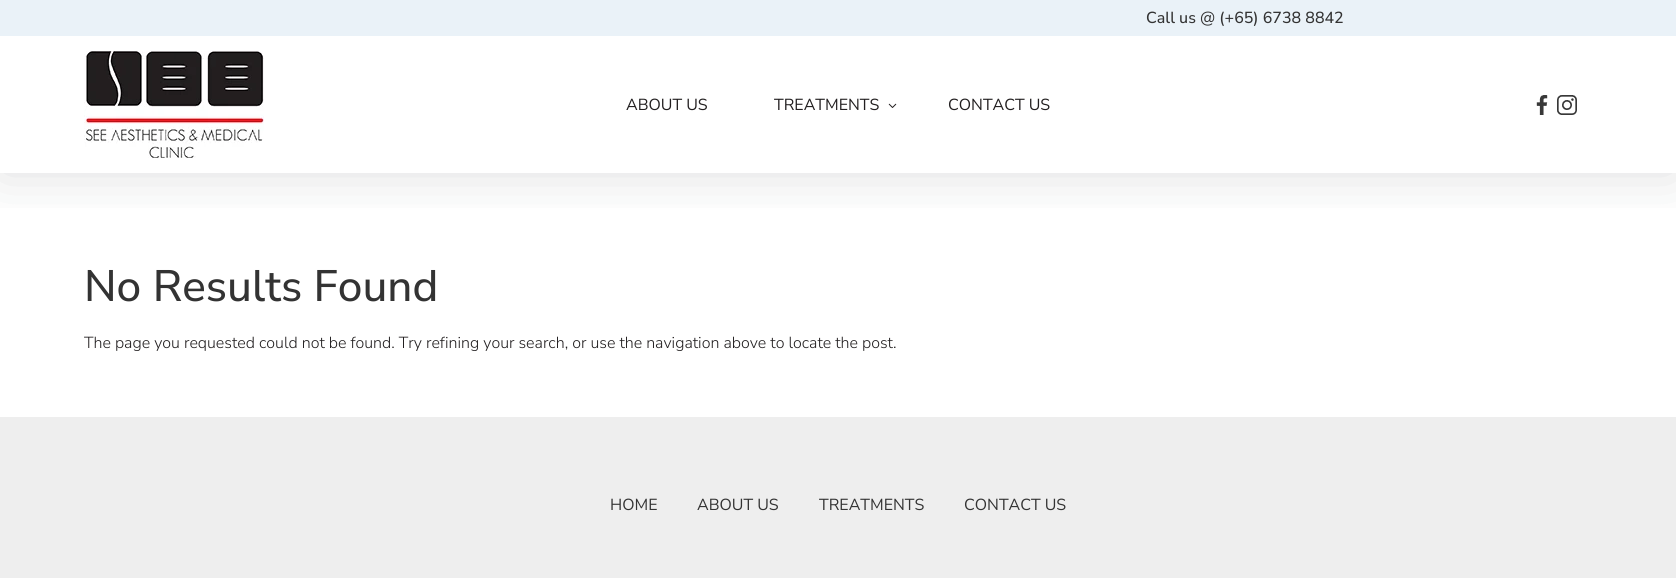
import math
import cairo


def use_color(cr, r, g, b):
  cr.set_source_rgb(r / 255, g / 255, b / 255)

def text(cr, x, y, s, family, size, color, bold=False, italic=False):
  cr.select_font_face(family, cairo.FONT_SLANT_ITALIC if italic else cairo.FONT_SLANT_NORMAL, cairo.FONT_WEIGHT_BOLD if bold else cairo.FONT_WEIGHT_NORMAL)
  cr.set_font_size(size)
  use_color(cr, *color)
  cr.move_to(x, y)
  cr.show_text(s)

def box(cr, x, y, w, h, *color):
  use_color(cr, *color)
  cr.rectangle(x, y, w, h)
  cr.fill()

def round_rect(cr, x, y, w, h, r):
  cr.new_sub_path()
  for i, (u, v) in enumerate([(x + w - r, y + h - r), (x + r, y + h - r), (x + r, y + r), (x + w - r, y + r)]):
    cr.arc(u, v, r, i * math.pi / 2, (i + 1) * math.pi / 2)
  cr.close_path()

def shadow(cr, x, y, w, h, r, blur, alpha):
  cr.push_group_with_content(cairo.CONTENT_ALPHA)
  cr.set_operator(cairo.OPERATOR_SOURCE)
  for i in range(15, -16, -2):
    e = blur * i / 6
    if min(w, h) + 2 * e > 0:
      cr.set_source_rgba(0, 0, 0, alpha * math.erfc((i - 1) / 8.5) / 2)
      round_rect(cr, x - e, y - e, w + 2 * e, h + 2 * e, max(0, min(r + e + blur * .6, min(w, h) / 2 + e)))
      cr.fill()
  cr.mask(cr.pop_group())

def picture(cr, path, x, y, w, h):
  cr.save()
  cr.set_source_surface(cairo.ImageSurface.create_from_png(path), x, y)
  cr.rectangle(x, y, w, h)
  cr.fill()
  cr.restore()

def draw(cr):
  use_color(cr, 255, 255, 255)
  cr.paint()
  cr.save()
  cr.rectangle(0, 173, 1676, 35)
  cr.clip()
  use_color(cr, 78, 85, 89)
  shadow(cr, 0, 0, 1676, 173, 0, 27, 0.2)
  cr.restore()
  box(cr, 0, 0, 1676, 36, 234, 242, 248)
  picture(cr, "img_01.png", 84, 51, 180, 107)
  picture(cr, "img_02.png", 888, 103, 9, 5)
  picture(cr, "img_03.png", 1536, 95, 12, 20)
  picture(cr, "img_04.png", 1557, 95, 20, 20)
  box(cr, 0, 417, 1676, 161, 238, 238, 238)
  text(cr, 1146, 23, "Call us @ (+65) 6738 8842", "Nunito Sans Medium", 16, (51, 51, 51))
  text(cr, 626, 110, "ABOUT US", "Nunito Sans", 16, (34, 31, 32))
  text(cr, 774, 110, "TREATMENTS", "Nunito Sans", 16, (34, 31, 32))
  text(cr, 948, 110, "CONTACT US", "Nunito Sans", 16, (34, 31, 32))
  text(cr, 84, 301, "No Results Found", "Nunito Sans Medium", 44, (51, 51, 51))
  text(cr, 84, 348, "The page you requested could not be found. Try refining your search, or use the navigation above to locate the post.", "Nunito Sans Light", 16, (34, 31, 32))
  text(cr, 610, 510, "HOME", "Nunito Sans", 16, (51, 51, 51))
  text(cr, 697, 510, "ABOUT US", "Nunito Sans", 16, (51, 51, 51))
  text(cr, 819, 510, "TREATMENTS", "Nunito Sans", 16, (51, 51, 51))
  text(cr, 964, 510, "CONTACT US", "Nunito Sans", 16, (51, 51, 51))


surface = cairo.ImageSurface(cairo.FORMAT_RGB24, 1676, 578)
cr = cairo.Context(surface)
options = cairo.FontOptions()
options.set_hint_metrics(cairo.HINT_METRICS_OFF)
options.set_hint_style(cairo.HINT_STYLE_NONE)
cr.set_font_options(options)
cr.set_miter_limit(4)
draw(cr)
surface.write_to_png("out.png")
